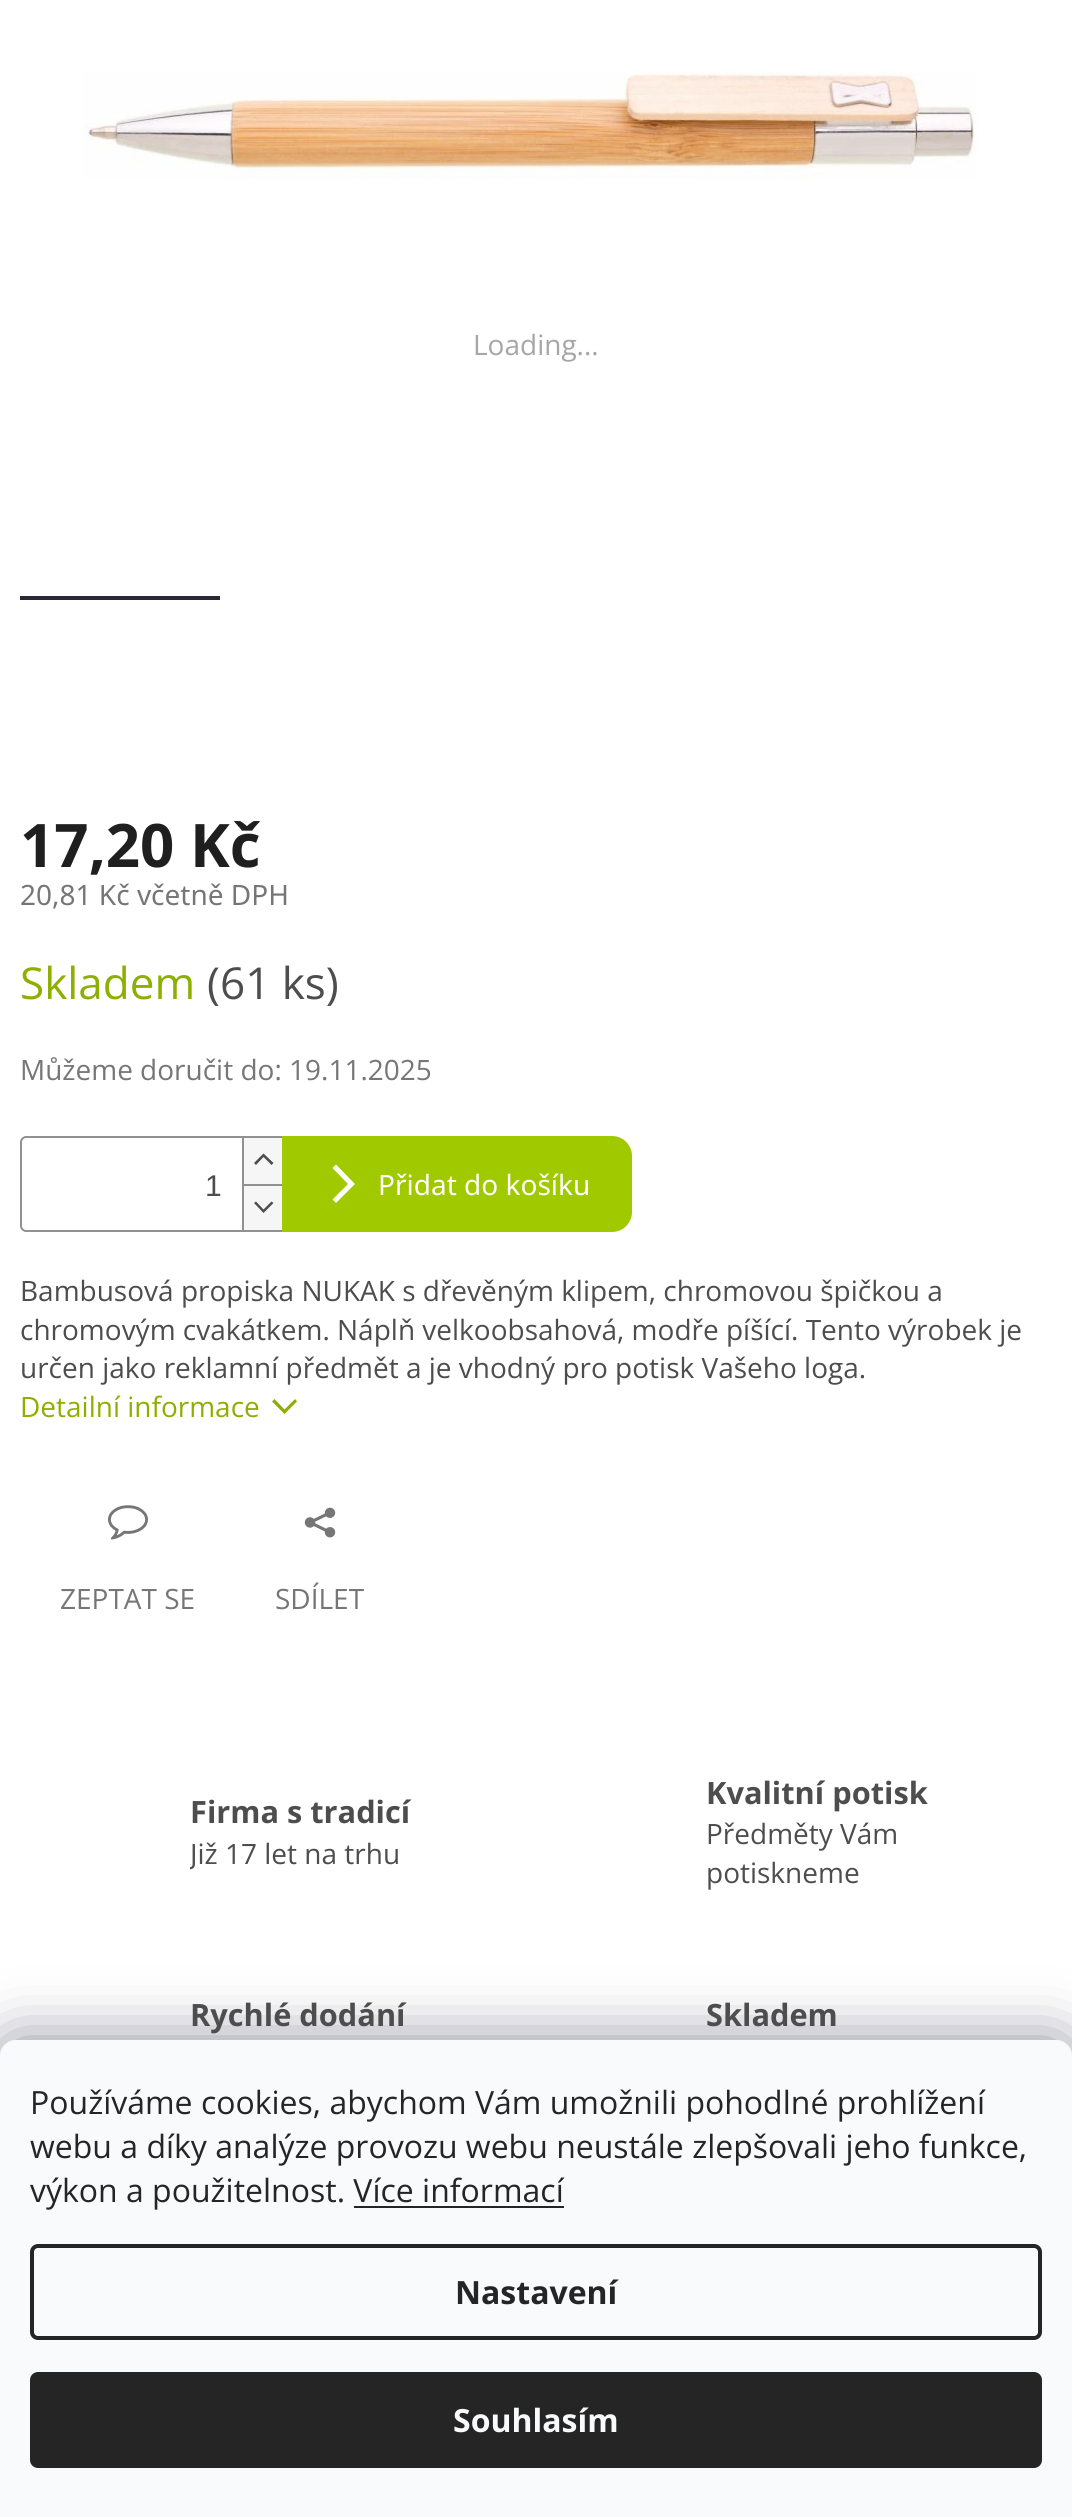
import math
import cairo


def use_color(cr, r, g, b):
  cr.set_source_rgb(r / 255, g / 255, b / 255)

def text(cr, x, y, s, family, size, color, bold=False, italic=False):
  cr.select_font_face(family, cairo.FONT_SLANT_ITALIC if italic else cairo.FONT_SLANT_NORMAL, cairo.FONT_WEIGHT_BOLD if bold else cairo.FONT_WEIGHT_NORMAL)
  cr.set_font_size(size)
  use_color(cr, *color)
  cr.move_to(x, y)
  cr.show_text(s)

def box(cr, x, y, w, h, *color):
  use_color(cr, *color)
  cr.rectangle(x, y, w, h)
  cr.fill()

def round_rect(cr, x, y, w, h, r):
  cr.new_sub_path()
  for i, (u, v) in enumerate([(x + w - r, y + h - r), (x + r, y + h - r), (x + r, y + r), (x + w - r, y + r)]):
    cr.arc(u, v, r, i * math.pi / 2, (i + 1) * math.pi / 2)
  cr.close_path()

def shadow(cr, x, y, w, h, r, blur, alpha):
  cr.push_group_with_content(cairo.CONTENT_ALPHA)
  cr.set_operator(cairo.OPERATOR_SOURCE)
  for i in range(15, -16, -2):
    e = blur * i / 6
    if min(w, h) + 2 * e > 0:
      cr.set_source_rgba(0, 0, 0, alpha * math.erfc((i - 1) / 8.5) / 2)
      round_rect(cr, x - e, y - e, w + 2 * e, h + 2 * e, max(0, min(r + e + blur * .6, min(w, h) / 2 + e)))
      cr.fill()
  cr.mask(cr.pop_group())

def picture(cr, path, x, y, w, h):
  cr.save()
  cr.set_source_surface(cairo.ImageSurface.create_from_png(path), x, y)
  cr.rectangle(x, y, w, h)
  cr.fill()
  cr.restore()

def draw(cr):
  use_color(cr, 255, 255, 255)
  cr.paint()
  picture(cr, "img_01.png", 84, 72, 893, 107)
  box(cr, 20, 596, 200, 4, 41, 40, 55)
  use_color(cr, 145, 145, 145)
  cr.set_fill_rule(cairo.FILL_RULE_EVEN_ODD)
  cr.new_path()
  cr.move_to(26, 1136)
  cr.line_to(282, 1136)
  cr.line_to(282, 1232)
  cr.line_to(26, 1232)
  cr.curve_to(23, 1232, 20, 1229, 20, 1226)
  cr.line_to(20, 1142)
  cr.curve_to(20, 1139, 23, 1136, 26, 1136)
  cr.close_path()
  cr.move_to(26, 1138)
  cr.line_to(282, 1138)
  cr.line_to(282, 1230)
  cr.line_to(26, 1230)
  cr.curve_to(24, 1230, 22, 1228, 22, 1226)
  cr.line_to(22, 1142)
  cr.curve_to(22, 1140, 24, 1138, 26, 1138)
  cr.close_path()
  cr.fill()
  box(cr, 244, 1138, 38, 46, 246, 246, 246)
  box(cr, 242, 1138, 2, 46, 145, 145, 145)
  use_color(cr, 77, 77, 77)
  cr.set_fill_rule(cairo.FILL_RULE_WINDING)
  cr.new_path()
  cr.move_to(254, 1163)
  cr.line_to(256, 1165)
  cr.line_to(263.5, 1157)
  cr.line_to(271.5, 1165)
  cr.line_to(273.5, 1163)
  cr.line_to(263.5, 1153.5)
  cr.close_path()
  cr.fill()
  box(cr, 244, 1186, 38, 44, 246, 246, 246)
  box(cr, 242, 1184, 40, 2, 145, 145, 145)
  box(cr, 242, 1184, 2, 46, 145, 145, 145)
  use_color(cr, 77, 77, 77)
  cr.new_path()
  cr.move_to(254, 1203)
  cr.line_to(256, 1201.5)
  cr.line_to(263.5, 1209.5)
  cr.line_to(271.5, 1201.5)
  cr.line_to(273.5, 1203)
  cr.line_to(263.5, 1213)
  cr.close_path()
  cr.fill()
  use_color(cr, 161, 201, 0)
  cr.new_path()
  cr.move_to(283, 1137)
  cr.line_to(612, 1137)
  cr.curve_to(622.5, 1137, 631, 1145.5, 631, 1156)
  cr.line_to(631, 1212)
  cr.curve_to(631, 1222.5, 622.5, 1231, 612, 1231)
  cr.line_to(283, 1231)
  cr.close_path()
  cr.fill_preserve()
  cr.stroke()
  use_color(cr, 255, 255, 255)
  cr.new_path()
  cr.move_to(336, 1203)
  cr.line_to(332.5, 1199.5)
  cr.line_to(348, 1184)
  cr.line_to(332.5, 1168)
  cr.line_to(336, 1164.5)
  cr.line_to(355, 1184)
  cr.close_path()
  cr.fill()
  use_color(cr, 141, 176, 0)
  cr.new_path()
  cr.move_to(272, 1401.5)
  cr.line_to(274.5, 1399)
  cr.line_to(284.5, 1409.5)
  cr.line_to(295, 1399)
  cr.line_to(297, 1401.5)
  cr.line_to(284.5, 1414)
  cr.close_path()
  cr.fill()
  picture(cr, "img_02.png", 108, 1505, 40, 35)
  picture(cr, "img_03.png", 304, 1507, 32, 31)
  use_color(cr, 27, 25, 57)
  shadow(cr, 0, 2040, 1072, 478, 16, 30, 0.5)
  use_color(cr, 248, 250, 251)
  cr.new_path()
  cr.move_to(16, 2040)
  cr.line_to(1056, 2040)
  cr.curve_to(1065, 2040, 1072, 2047, 1072, 2056)
  cr.line_to(1072, 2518)
  cr.line_to(0, 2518)
  cr.line_to(0, 2056)
  cr.curve_to(0, 2047, 7, 2040, 16, 2040)
  cr.close_path()
  cr.fill()
  box(cr, 354, 2206, 210, 2, 37, 37, 37)
  round_rect(cr, 32, 2246, 1008, 92, 6)
  cr.set_line_width(4)
  cr.stroke()
  round_rect(cr, 30, 2372, 1012, 96, 8)
  cr.fill()
  text(cr, 473, 355, "Loading...", "Open Sans", 28, (166, 166, 166))
  text(cr, 20, 867, "17,20 Kč", "Noto Sans", 60, (31, 31, 31), bold=True)
  text(cr, 20, 905, "20,81 Kč včetně DPH", "Noto Sans", 28, (118, 118, 118))
  text(cr, 20, 999, "Skladem", "Open Sans", 44, (141, 176, 0))
  text(cr, 207, 999, "(61 ks)", "Open Sans", 44, (77, 77, 77))
  text(cr, 20, 1080, "Můžeme doručit do: 19.11.2025", "Open Sans", 28, (118, 118, 118))
  text(cr, 205, 1196, "1", "Liberation Sans", 30, (77, 77, 77))
  text(cr, 378, 1195, "Přidat do košíku", "Noto Sans", 28, (255, 255, 255))
  text(cr, 20, 1301, "Bambusová propiska NUKAK s dřevěným klipem, chromovou špičkou a", "Open Sans", 28, (77, 77, 77))
  text(cr, 20, 1340, "chromovým cvakátkem. Náplň velkoobsahová, modře píšící. Tento výrobek je", "Open Sans", 28, (77, 77, 77))
  text(cr, 20, 1378, "určen jako reklamní předmět a je vhodný pro potisk Vašeho loga.", "Open Sans", 28, (77, 77, 77))
  text(cr, 20, 1417, "Detailní informace", "Open Sans", 28, (141, 176, 0))
  text(cr, 60, 1609, "ZEPTAT SE", "Open Sans", 28, (118, 118, 118))
  text(cr, 275, 1609, "SDÍLET", "Open Sans", 28, (118, 118, 118))
  text(cr, 190, 1823, "Firma s tradicí", "Open Sans", 30.75, (77, 77, 77), bold=True)
  cr.save()
  cr.rectangle(190, 1790, 240, 82)
  cr.clip()
  text(cr, 190, 1864, "Již 17 let na trhu", "Open Sans", 28, (77, 77, 77))
  cr.restore()
  text(cr, 706, 1804, "Kvalitní potisk", "Open Sans", 30.75, (77, 77, 77), bold=True)
  text(cr, 706, 1844, "Předměty Vám", "Open Sans", 28, (77, 77, 77))
  text(cr, 706, 1883, "potiskneme", "Open Sans", 28, (77, 77, 77))
  text(cr, 190, 2026, "Rychlé dodání", "Open Sans", 30.75, (77, 77, 77), bold=True)
  text(cr, 706, 2026, "Skladem", "Open Sans", 30.75, (77, 77, 77), bold=True)
  text(cr, 30, 2114, "Používáme cookies, abychom Vám umožnili pohodlné prohlížení", "Open Sans", 32, (37, 37, 37))
  text(cr, 30, 2158, "webu a díky analýze provozu webu neustále zlepšovali jeho funkce,", "Open Sans", 32, (37, 37, 37))
  text(cr, 30, 2202, "výkon a použitelnost. Více informací", "Open Sans", 32, (37, 37, 37))
  text(cr, 455, 2304, "Nastavení", "Open Sans", 32, (37, 37, 37), bold=True)
  text(cr, 453, 2432, "Souhlasím", "Open Sans", 32, (248, 250, 251), bold=True)


surface = cairo.ImageSurface(cairo.FORMAT_RGB24, 1072, 2517)
cr = cairo.Context(surface)
options = cairo.FontOptions()
options.set_hint_metrics(cairo.HINT_METRICS_OFF)
options.set_hint_style(cairo.HINT_STYLE_NONE)
cr.set_font_options(options)
cr.set_miter_limit(4)
draw(cr)
surface.write_to_png("out.png")
